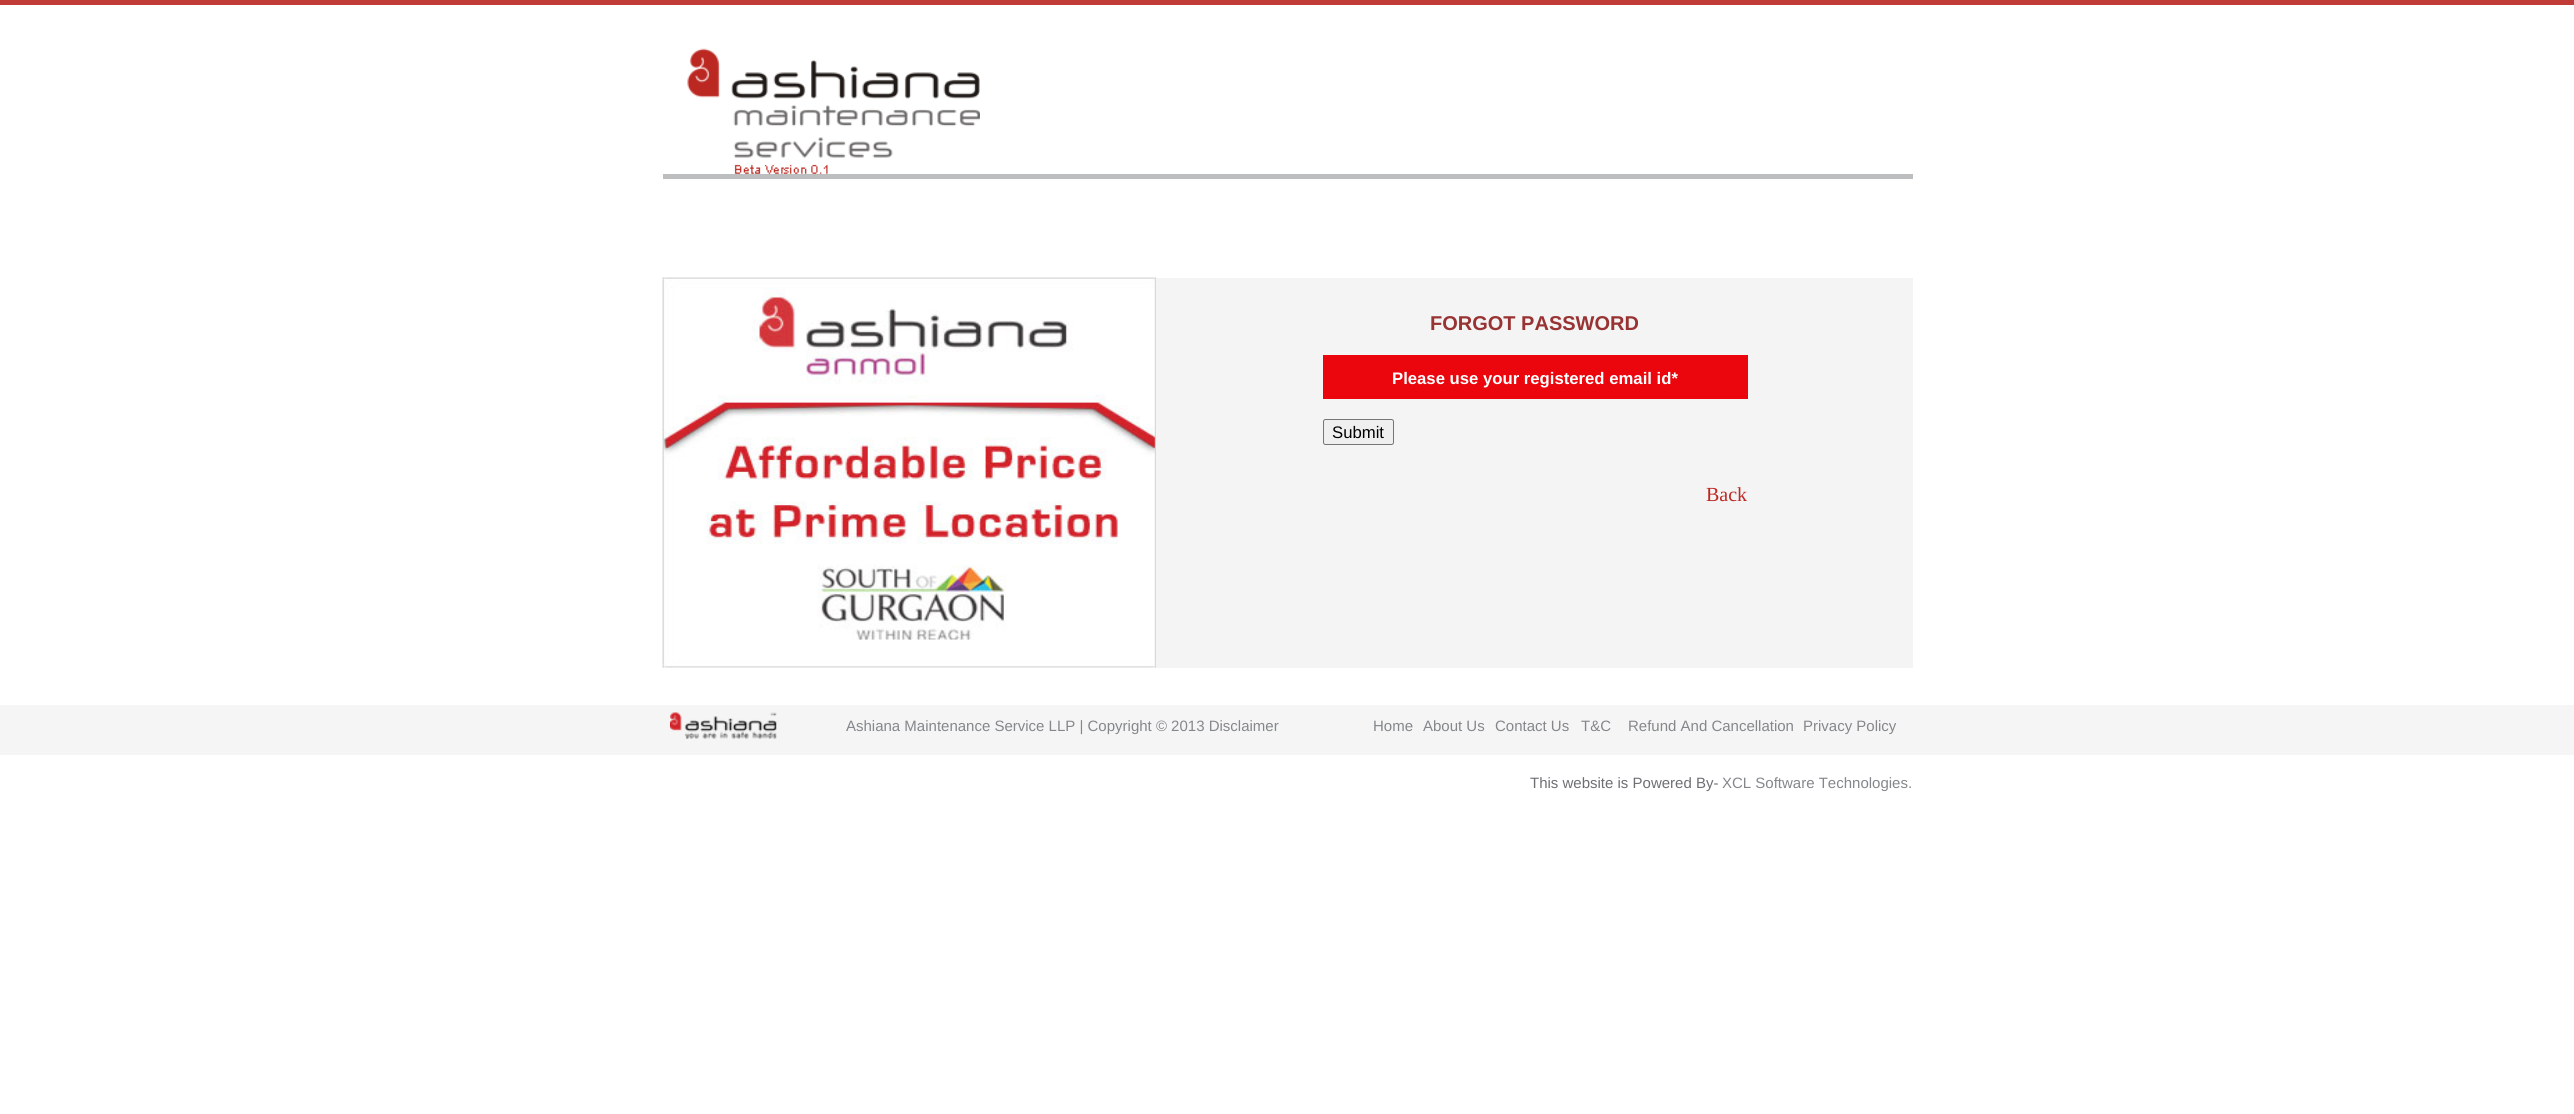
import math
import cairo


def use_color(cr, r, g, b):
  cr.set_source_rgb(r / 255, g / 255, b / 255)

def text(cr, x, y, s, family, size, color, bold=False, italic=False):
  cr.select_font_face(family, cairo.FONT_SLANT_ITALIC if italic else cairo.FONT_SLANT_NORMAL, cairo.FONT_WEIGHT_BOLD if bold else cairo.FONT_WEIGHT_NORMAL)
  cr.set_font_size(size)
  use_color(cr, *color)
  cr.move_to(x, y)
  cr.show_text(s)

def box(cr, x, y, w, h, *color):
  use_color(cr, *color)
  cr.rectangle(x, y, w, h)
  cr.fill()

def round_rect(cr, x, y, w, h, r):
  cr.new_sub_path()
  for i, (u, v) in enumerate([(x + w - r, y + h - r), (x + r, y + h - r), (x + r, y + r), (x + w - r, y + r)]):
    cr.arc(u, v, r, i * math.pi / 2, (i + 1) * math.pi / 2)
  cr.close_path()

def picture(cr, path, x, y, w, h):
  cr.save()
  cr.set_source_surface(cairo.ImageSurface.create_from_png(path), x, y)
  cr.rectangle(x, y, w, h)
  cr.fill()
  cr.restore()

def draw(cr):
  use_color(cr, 255, 255, 255)
  cr.paint()
  box(cr, 0, 0, 2574, 5, 193, 60, 55)
  picture(cr, "img_01.png", 687, 48, 293, 126)
  box(cr, 663, 174, 1250, 5, 188, 190, 192)
  picture(cr, "img_02.png", 662, 277, 495, 391)
  box(cr, 1156, 278, 757, 390, 244, 244, 244)
  box(cr, 1323, 355, 425, 44, 234, 6, 12)
  use_color(cr, 239, 239, 239)
  round_rect(cr, 1323.5, 419.5, 70, 25, 2)
  cr.fill_preserve()
  use_color(cr, 118, 118, 118)
  cr.set_line_width(1)
  cr.stroke()
  box(cr, 0, 705, 2574, 50, 245, 245, 245)
  picture(cr, "img_03.png", 670, 712, 107, 27)
  text(cr, 1430, 330, "FORGOT PASSWORD", "Liberation Sans", 20, (153, 51, 51), bold=True)
  text(cr, 1392, 384, "Please use your registered email id*", "Liberation Sans", 16.7, (255, 255, 255), bold=True)
  text(cr, 1332, 438, "Submit", "Liberation Sans", 16.7, (0, 0, 0))
  text(cr, 1706, 501, "Back", "Liberation Serif", 20, (189, 40, 36))
  text(cr, 846, 731, "Ashiana Maintenance Service LLP | Copyright © 2013 Disclaimer", "Liberation Sans", 15, (132, 135, 139))
  text(cr, 1373, 731, "Home", "Liberation Sans", 15, (132, 135, 139))
  text(cr, 1423, 731, "About Us", "Liberation Sans", 15, (132, 135, 139))
  text(cr, 1495, 731, "Contact Us", "Liberation Sans", 15, (132, 135, 139))
  text(cr, 1581, 731, "T&C", "Liberation Sans", 15, (132, 135, 139))
  text(cr, 1628, 731, "Refund And Cancellation", "Liberation Sans", 15, (132, 135, 139))
  text(cr, 1803, 731, "Privacy Policy", "Liberation Sans", 15, (132, 135, 139))
  text(cr, 1530, 788, "This website is Powered By-", "Liberation Sans", 15, (109, 111, 114))
  text(cr, 1722, 788, "XCL Software Technologies.", "Liberation Sans", 15, (132, 135, 139))


surface = cairo.ImageSurface(cairo.FORMAT_RGB24, 2574, 1114)
cr = cairo.Context(surface)
options = cairo.FontOptions()
options.set_hint_metrics(cairo.HINT_METRICS_OFF)
options.set_hint_style(cairo.HINT_STYLE_NONE)
cr.set_font_options(options)
cr.set_miter_limit(4)
draw(cr)
surface.write_to_png("out.png")
